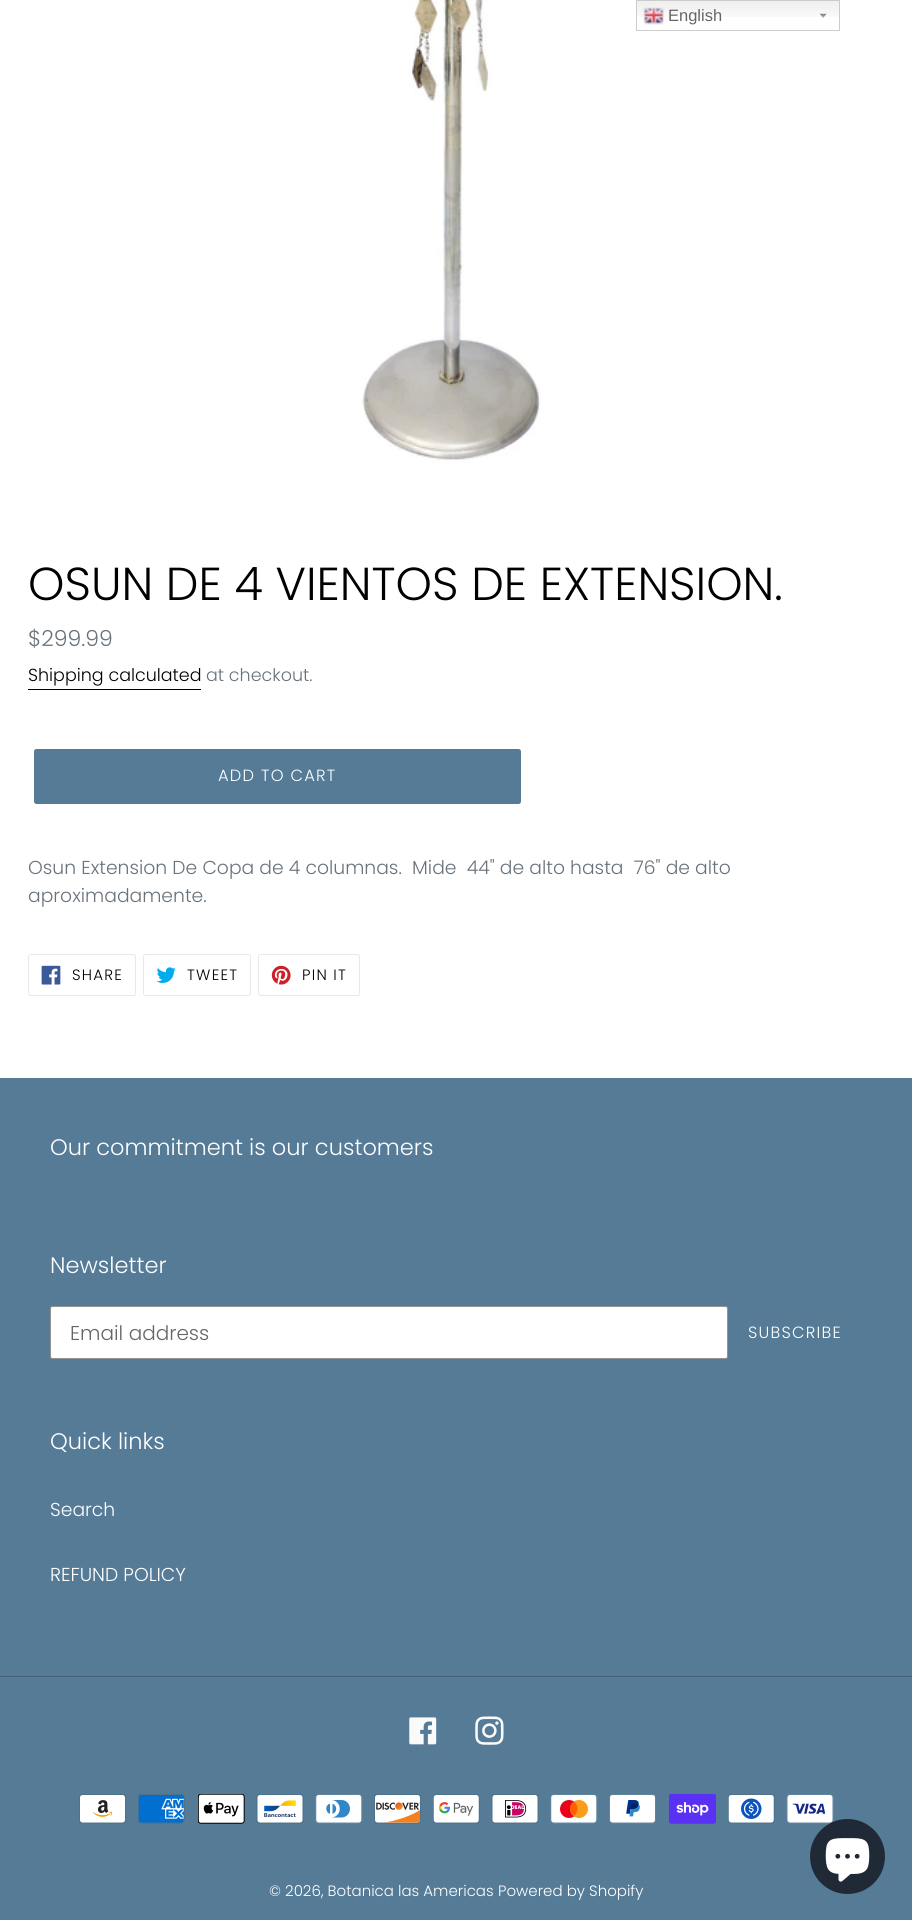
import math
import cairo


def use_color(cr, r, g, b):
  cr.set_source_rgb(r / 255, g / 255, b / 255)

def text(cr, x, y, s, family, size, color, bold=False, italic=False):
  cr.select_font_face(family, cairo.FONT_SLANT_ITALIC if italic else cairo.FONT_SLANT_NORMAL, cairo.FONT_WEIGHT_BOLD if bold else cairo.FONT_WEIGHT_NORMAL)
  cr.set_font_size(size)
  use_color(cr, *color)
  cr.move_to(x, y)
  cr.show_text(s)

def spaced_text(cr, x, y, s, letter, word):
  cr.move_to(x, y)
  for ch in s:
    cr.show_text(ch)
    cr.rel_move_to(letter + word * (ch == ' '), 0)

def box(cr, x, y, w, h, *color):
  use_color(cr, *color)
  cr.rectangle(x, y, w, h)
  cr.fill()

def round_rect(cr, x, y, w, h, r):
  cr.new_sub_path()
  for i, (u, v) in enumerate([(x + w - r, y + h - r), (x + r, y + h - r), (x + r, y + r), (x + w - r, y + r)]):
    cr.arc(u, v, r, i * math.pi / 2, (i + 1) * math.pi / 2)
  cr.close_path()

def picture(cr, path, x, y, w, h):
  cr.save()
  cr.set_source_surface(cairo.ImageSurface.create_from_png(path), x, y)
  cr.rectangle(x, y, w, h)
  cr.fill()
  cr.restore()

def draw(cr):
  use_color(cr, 255, 255, 255)
  cr.paint()
  picture(cr, "img_01.png", 637, 1, 202, 16)
  picture(cr, "img_02.png", 820, 13, 7, 5)
  cr.rectangle(636.5, 0.5, 203, 30)
  use_color(cr, 204, 204, 204)
  cr.set_line_width(1)
  cr.stroke()
  picture(cr, "img_03.png", 643, 7, 21, 18)
  picture(cr, "img_04.png", 362, 0, 179, 463)
  box(cr, 28, 689, 173, 1, 0, 0, 0)
  use_color(cr, 85, 123, 151)
  round_rect(cr, 34, 749, 487, 55, 2.5)
  cr.fill()
  round_rect(cr, 28.5, 954.5, 107, 41, 2)
  use_color(cr, 232, 233, 235)
  cr.stroke()
  picture(cr, "img_05.png", 41, 965, 20, 20)
  round_rect(cr, 143.5, 954.5, 107, 41, 2)
  cr.stroke()
  picture(cr, "img_06.png", 156, 967, 20, 16)
  round_rect(cr, 258.5, 954.5, 101, 41, 2)
  cr.stroke()
  picture(cr, "img_07.png", 271, 965, 20, 20)
  box(cr, 0, 1078, 912, 842, 85, 123, 151)
  use_color(cr, 255, 255, 255)
  round_rect(cr, 50.5, 1306.5, 677, 52, 2)
  cr.fill_preserve()
  use_color(cr, 148, 148, 148)
  cr.stroke()
  box(cr, 0, 1676, 912, 1, 67, 96, 118)
  picture(cr, "img_08.png", 409, 1717, 28, 28)
  picture(cr, "img_09.png", 475, 1716, 29, 29)
  picture(cr, "img_10.png", 79, 1794, 47, 30)
  picture(cr, "img_11.png", 138, 1794, 47, 30)
  picture(cr, "img_12.png", 198, 1794, 47, 30)
  picture(cr, "img_13.png", 256, 1794, 48, 30)
  picture(cr, "img_14.png", 315, 1794, 48, 30)
  picture(cr, "img_15.png", 374, 1794, 47, 30)
  picture(cr, "img_16.png", 433, 1794, 47, 30)
  picture(cr, "img_17.png", 491, 1794, 48, 30)
  picture(cr, "img_18.png", 550, 1794, 48, 30)
  picture(cr, "img_19.png", 609, 1794, 47, 30)
  picture(cr, "img_20.png", 669, 1794, 47, 30)
  picture(cr, "img_21.png", 728, 1794, 47, 30)
  picture(cr, "img_22.png", 786, 1794, 48, 30)
  use_color(cr, 32, 42, 54)
  cr.arc(847.5, 1856.5, 37.5, 0, 2 * math.pi)
  cr.fill()
  picture(cr, "img_23.png", 825, 1838, 45, 44)
  text(cr, 668, 21, "English", "Liberation Sans", 16.5, (102, 102, 102))
  text(cr, 28, 600, "OSUN DE 4 VIENTOS DE EXTENSION.", "Poppins Light", 46.25, (0, 0, 0))
  text(cr, 28, 646, "$299.99", "Poppins Light", 22, (105, 114, 123))
  text(cr, 28, 681, "Shipping calculated", "Poppins Light", 17.5, (0, 0, 0))
  text(cr, 206, 681, "at checkout.", "Poppins Light", 17.5, (105, 114, 123))
  cr.set_font_size(16.25)
  use_color(cr, 255, 255, 255)
  spaced_text(cr, 218, 781, "ADD TO CART", 1.25, 0)
  text(cr, 28, 874, "Osun Extension De Copa de 4 columnas.  Mide  44\" de alto hasta  76\" de alto", "Poppins Light", 18.75, (105, 114, 123))
  text(cr, 28, 902, "aproximadamente.", "Poppins Light", 18.75, (105, 114, 123))
  cr.set_font_size(15)
  use_color(cr, 0, 0, 0)
  spaced_text(cr, 72, 980, "SHARE", 1.25, 0)
  spaced_text(cr, 187, 980, "TWEET", 1.25, 0)
  spaced_text(cr, 302, 980, "PIN IT", 1.25, 0)
  text(cr, 50, 1155, "Our commitment is our customers", "Poppins Light", 22.5, (255, 255, 255))
  text(cr, 50, 1273, "Newsletter", "Poppins Light", 22.5, (255, 255, 255))
  text(cr, 70, 1340, "Email address", "Poppins Light", 20, (102, 102, 102))
  cr.set_font_size(16.25)
  use_color(cr, 255, 255, 255)
  spaced_text(cr, 748, 1338, "SUBSCRIBE", 1.25, 0)
  text(cr, 50, 1449, "Quick links", "Poppins Light", 22.5, (255, 255, 255))
  text(cr, 50, 1516, "Search", "Poppins Light", 18.75, (255, 255, 255))
  text(cr, 50, 1581, "REFUND POLICY", "Poppins Light", 18.75, (255, 255, 255))
  text(cr, 269, 1896, "© 2026, Botanica las Americas", "Poppins Light", 15, (255, 255, 255))
  text(cr, 498, 1896, "Powered by Shopify", "Poppins Light", 15, (255, 255, 255))


surface = cairo.ImageSurface(cairo.FORMAT_RGB24, 912, 1920)
cr = cairo.Context(surface)
options = cairo.FontOptions()
options.set_hint_metrics(cairo.HINT_METRICS_OFF)
options.set_hint_style(cairo.HINT_STYLE_NONE)
cr.set_font_options(options)
cr.set_miter_limit(4)
draw(cr)
surface.write_to_png("out.png")
